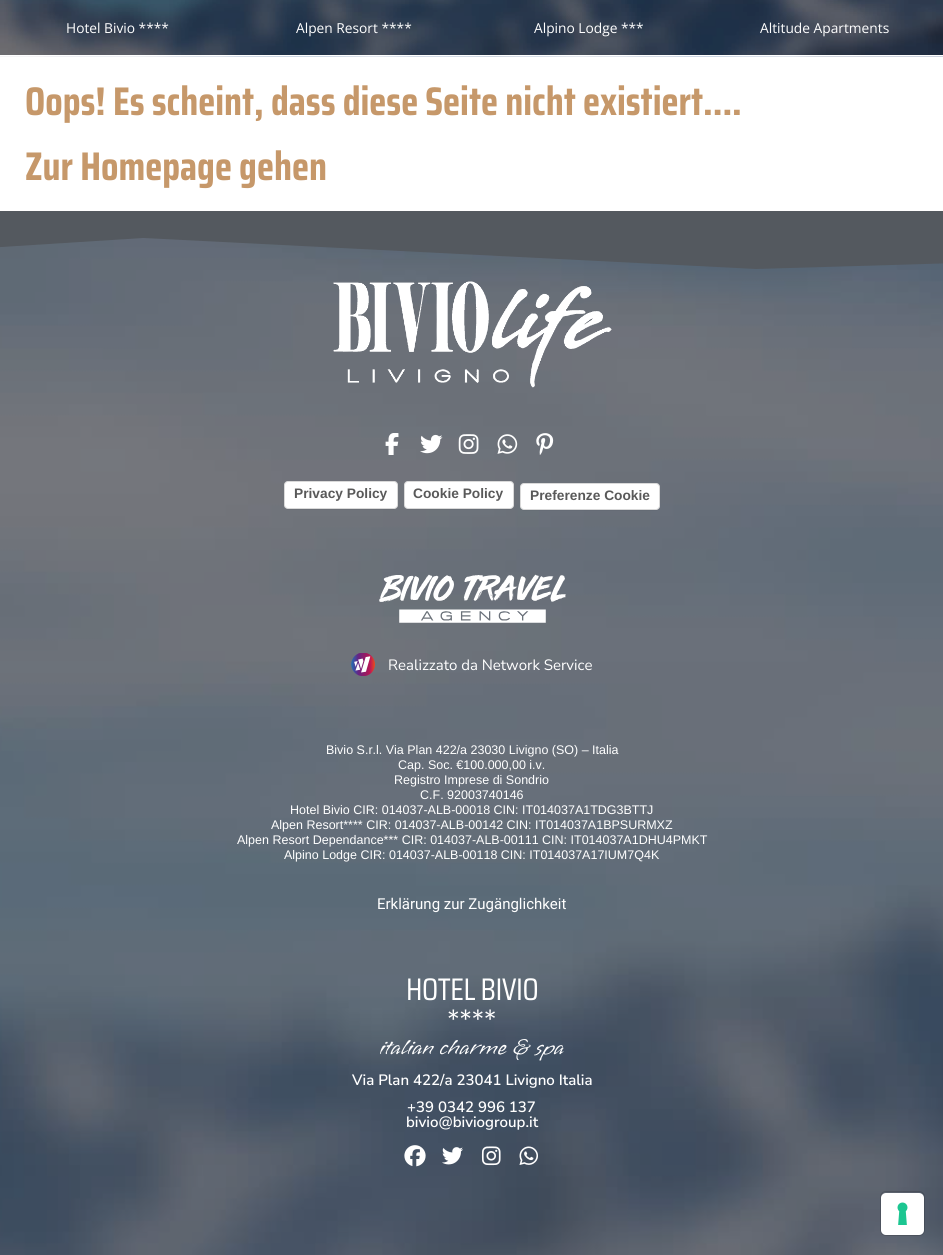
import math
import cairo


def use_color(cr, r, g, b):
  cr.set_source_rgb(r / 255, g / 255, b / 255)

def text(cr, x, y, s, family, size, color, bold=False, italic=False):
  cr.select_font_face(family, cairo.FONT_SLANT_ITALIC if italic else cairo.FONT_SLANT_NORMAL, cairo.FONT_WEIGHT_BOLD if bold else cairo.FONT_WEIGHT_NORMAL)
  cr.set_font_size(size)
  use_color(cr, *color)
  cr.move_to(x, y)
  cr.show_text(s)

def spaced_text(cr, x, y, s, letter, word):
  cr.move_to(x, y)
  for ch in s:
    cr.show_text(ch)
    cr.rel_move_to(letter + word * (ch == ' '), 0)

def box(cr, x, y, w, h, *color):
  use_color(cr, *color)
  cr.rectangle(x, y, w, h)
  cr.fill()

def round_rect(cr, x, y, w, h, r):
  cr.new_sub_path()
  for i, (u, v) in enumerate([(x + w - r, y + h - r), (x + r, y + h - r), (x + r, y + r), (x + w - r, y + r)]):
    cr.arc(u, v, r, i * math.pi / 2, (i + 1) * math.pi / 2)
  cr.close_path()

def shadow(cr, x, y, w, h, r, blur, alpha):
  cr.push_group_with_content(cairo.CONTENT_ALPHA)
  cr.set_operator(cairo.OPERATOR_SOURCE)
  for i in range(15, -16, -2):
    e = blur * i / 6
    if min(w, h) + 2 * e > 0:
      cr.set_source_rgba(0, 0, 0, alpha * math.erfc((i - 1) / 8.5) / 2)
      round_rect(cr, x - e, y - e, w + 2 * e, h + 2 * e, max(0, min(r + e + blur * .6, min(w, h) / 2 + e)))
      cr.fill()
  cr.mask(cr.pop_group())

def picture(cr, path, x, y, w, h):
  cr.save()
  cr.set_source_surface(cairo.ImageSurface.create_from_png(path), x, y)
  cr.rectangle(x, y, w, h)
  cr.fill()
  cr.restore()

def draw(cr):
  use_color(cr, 255, 255, 255)
  cr.paint()
  picture(cr, "img_01.png", 0, 0, 943, 57)
  box(cr, 0, 55, 943, 1, 255, 255, 255)
  box(cr, 0, 211, 943, 24, 84, 89, 95)
  picture(cr, "img_02.png", 0, 238, 943, 1017)
  cr.new_path()
  cr.move_to(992, 262)
  cr.line_to(756, 269)
  cr.line_to(143, 238)
  cr.line_to(-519, 280)
  cr.line_to(-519, 235)
  cr.line_to(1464, 235)
  cr.line_to(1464, 280)
  cr.fill()
  picture(cr, "img_03.png", 333, 281, 279, 107)
  picture(cr, "img_04.png", 385, 433, 14, 22)
  picture(cr, "img_05.png", 420, 434, 23, 20)
  picture(cr, "img_06.png", 458, 434, 21, 20)
  picture(cr, "img_07.png", 497, 434, 21, 20)
  picture(cr, "img_08.png", 536, 433, 18, 22)
  use_color(cr, 0, 0, 0)
  shadow(cr, 285, 484, 111, 25, 2.5, 0.5, 0.15)
  use_color(cr, 255, 255, 255)
  round_rect(cr, 284, 481, 114, 28, 4)
  cr.fill()
  round_rect(cr, 284.5, 481.5, 113, 27, 3.5)
  cr.set_source_rgba(0, 0, 0, 0.15)
  cr.set_line_width(1)
  cr.stroke()
  use_color(cr, 0, 0, 0)
  shadow(cr, 405, 484, 108, 25, 2.5, 0.5, 0.15)
  use_color(cr, 255, 255, 255)
  round_rect(cr, 404, 481, 110, 28, 4)
  cr.fill()
  round_rect(cr, 404.5, 481.5, 109, 27, 3.5)
  cr.set_source_rgba(0, 0, 0, 0.15)
  cr.stroke()
  use_color(cr, 0, 0, 0)
  shadow(cr, 521, 485, 138, 25, 2.5, 0.5, 0.15)
  use_color(cr, 255, 255, 255)
  round_rect(cr, 520, 483, 140, 27, 4)
  cr.fill()
  round_rect(cr, 520.5, 483.5, 139, 26, 3.5)
  cr.set_source_rgba(0, 0, 0, 0.15)
  cr.stroke()
  picture(cr, "img_09.png", 379, 574, 187, 49)
  picture(cr, "img_10.png", 351, 653, 24, 23)
  picture(cr, "img_11.png", 404, 1145, 22, 22)
  picture(cr, "img_12.png", 442, 1147, 21, 18)
  picture(cr, "img_13.png", 481, 1146, 20, 20)
  picture(cr, "img_14.png", 519, 1146, 19, 19)
  round_rect(cr, 880.5, 1191.5, 44, 44, 5.5)
  cr.stroke()
  use_color(cr, 255, 255, 255)
  round_rect(cr, 881, 1193, 43, 42, 5)
  cr.fill()
  picture(cr, "img_15.png", 897, 1202, 11, 23)
  text(cr, 66, 33, "Hotel Bivio ****", "Open Sans", 13.75, (255, 255, 255))
  text(cr, 296, 33, "Alpen Resort ****", "Open Sans", 13.75, (255, 255, 255))
  text(cr, 534, 33, "Alpino Lodge ***", "Open Sans", 13.75, (255, 255, 255))
  text(cr, 760, 33, "Altitude Apartments", "Open Sans", 13.75, (255, 255, 255))
  text(cr, 25, 115, "Oops! Es scheint, dass diese Seite nicht existiert....", "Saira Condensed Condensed", 40, (198, 152, 106), bold=True)
  text(cr, 25, 180, "Zur Homepage gehen", "Saira Condensed Condensed", 40, (198, 152, 106), bold=True)
  text(cr, 294, 498, "Privacy Policy", "Liberation Sans", 13.75, (89, 89, 89), bold=True)
  text(cr, 413, 498, "Cookie Policy", "Liberation Sans", 13.75, (89, 89, 89), bold=True)
  text(cr, 530, 500, "Preferenze Cookie", "Liberation Sans", 13.75, (89, 89, 89), bold=True)
  text(cr, 388, 670, "Realizzato da Network Service", "Nunito Sans", 15, (255, 255, 255))
  text(cr, 326, 754, "Bivio S.r.l. Via Plan 422/a 23030 Livigno (SO) – Italia", "Liberation Sans", 12.5, (255, 255, 255))
  text(cr, 398, 769, "Cap. Soc. €100.000,00 i.v.", "Liberation Sans", 12.5, (255, 255, 255))
  text(cr, 394, 784, "Registro Imprese di Sondrio", "Liberation Sans", 12.5, (255, 255, 255))
  text(cr, 420, 799, "C.F. 92003740146", "Liberation Sans", 12.5, (255, 255, 255))
  text(cr, 290, 814, "Hotel Bivio CIR: 014037-ALB-00018 CIN: IT014037A1TDG3BTTJ", "Liberation Sans", 12.5, (255, 255, 255))
  text(cr, 271, 829, "Alpen Resort**** CIR: 014037-ALB-00142 CIN: IT014037A1BPSURMXZ", "Liberation Sans", 12.5, (255, 255, 255))
  text(cr, 237, 844, "Alpen Resort Dependance*** CIR: 014037-ALB-00111 CIN: IT014037A1DHU4PMKT", "Liberation Sans", 12.5, (255, 255, 255))
  text(cr, 284, 859, "Alpino Lodge CIR: 014037-ALB-00118 CIN: IT014037A17IUM7Q4K", "Liberation Sans", 12.5, (255, 255, 255))
  text(cr, 377, 909, "Erklärung zur Zugänglichkeit", "Roboto", 15, (255, 255, 255))
  cr.select_font_face("Saira Condensed")
  cr.set_font_size(31.25)
  spaced_text(cr, 406, 1000, "HOTEL BIVIO", -0.4, 0)
  spaced_text(cr, 447, 1031, "****", -0.4, 0)
  text(cr, 380, 1054, "italian charme & spa", "Vujahday Script", 23.75, (255, 255, 255))
  text(cr, 352, 1085, "Via Plan 422/a 23041 Livigno Italia", "Nunito Sans SemiBold", 15, (255, 255, 255))
  text(cr, 407, 1112, "+39 0342 996 137", "Nunito Sans SemiBold", 15, (255, 255, 255))
  text(cr, 406, 1127, "bivio@biviogroup.it", "Nunito Sans SemiBold", 15, (255, 255, 255))


surface = cairo.ImageSurface(cairo.FORMAT_RGB24, 943, 1255)
cr = cairo.Context(surface)
options = cairo.FontOptions()
options.set_hint_metrics(cairo.HINT_METRICS_OFF)
options.set_hint_style(cairo.HINT_STYLE_NONE)
cr.set_font_options(options)
cr.set_miter_limit(4)
draw(cr)
surface.write_to_png("out.png")
